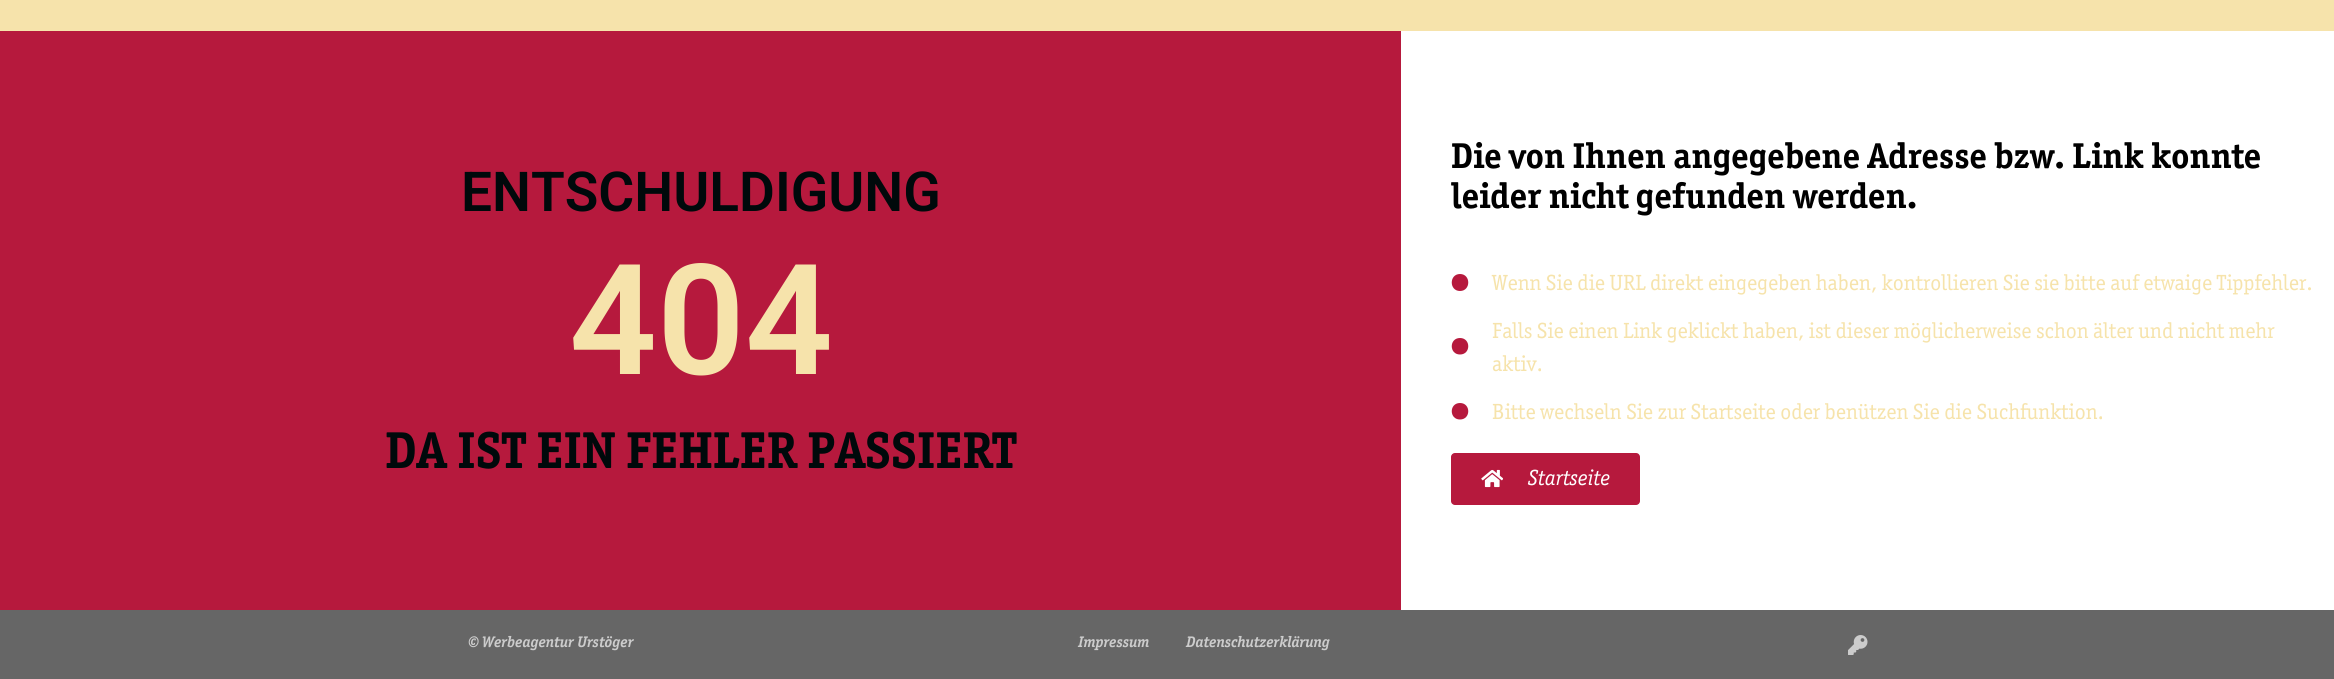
import math
import cairo


def use_color(cr, r, g, b):
  cr.set_source_rgb(r / 255, g / 255, b / 255)

def text(cr, x, y, s, family, size, color, bold=False, italic=False):
  cr.select_font_face(family, cairo.FONT_SLANT_ITALIC if italic else cairo.FONT_SLANT_NORMAL, cairo.FONT_WEIGHT_BOLD if bold else cairo.FONT_WEIGHT_NORMAL)
  cr.set_font_size(size)
  use_color(cr, *color)
  cr.move_to(x, y)
  cr.show_text(s)

def box(cr, x, y, w, h, *color):
  use_color(cr, *color)
  cr.rectangle(x, y, w, h)
  cr.fill()

def round_rect(cr, x, y, w, h, r):
  cr.new_sub_path()
  for i, (u, v) in enumerate([(x + w - r, y + h - r), (x + r, y + h - r), (x + r, y + r), (x + w - r, y + r)]):
    cr.arc(u, v, r, i * math.pi / 2, (i + 1) * math.pi / 2)
  cr.close_path()

def picture(cr, path, x, y, w, h):
  cr.save()
  cr.set_source_surface(cairo.ImageSurface.create_from_png(path), x, y)
  cr.rectangle(x, y, w, h)
  cr.fill()
  cr.restore()

def draw(cr):
  use_color(cr, 255, 255, 255)
  cr.paint()
  box(cr, 0, 0, 2334, 31, 246, 227, 171)
  box(cr, 0, 31, 1401, 579, 182, 25, 61)
  cr.new_path()
  cr.move_to(1460, 274)
  cr.curve_to(1449, 274, 1449, 291, 1460, 291)
  cr.curve_to(1471, 291, 1471, 274, 1460, 274)
  cr.close_path()
  cr.fill()
  cr.new_path()
  cr.move_to(1460, 338)
  cr.curve_to(1449, 338, 1449, 354.5, 1460, 354.5)
  cr.curve_to(1471, 354.5, 1471, 338, 1460, 338)
  cr.close_path()
  cr.fill()
  cr.new_path()
  cr.move_to(1460, 403)
  cr.curve_to(1449, 403, 1449, 419.5, 1460, 419.5)
  cr.curve_to(1471, 419.5, 1471, 403, 1460, 403)
  cr.close_path()
  cr.fill()
  round_rect(cr, 1451, 453, 189, 52, 4)
  cr.fill()
  picture(cr, "img_01.png", 1481, 469, 22, 19)
  box(cr, 0, 610, 2334, 69, 102, 102, 102)
  picture(cr, "img_02.png", 1848, 635, 20, 20)
  text(cr, 461, 211, "ENTSCHULDIGUNG", "Roboto SemiBold", 55, (0, 9, 11))
  text(cr, 569, 374, "404", "Roboto SemiBold", 154, (246, 227, 171))
  text(cr, 385, 468, "DA IST EIN FEHLER PASSIERT", "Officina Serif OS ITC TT", 52, (0, 9, 11), bold=True)
  text(cr, 1451, 168, "Die von Ihnen angegebene Adresse bzw. Link konnte", "Officina Serif OS ITC TT", 36, (0, 0, 0), bold=True)
  text(cr, 1451, 208, "leider nicht gefunden werden.", "Officina Serif OS ITC TT", 36, (0, 0, 0), bold=True)
  text(cr, 1492, 290, "Wenn Sie die URL direkt eingegeben haben, kontrollieren Sie sie bitte auf etwaige Tippfehler.", "Officina Serif OS ITC TT", 22, (246, 227, 171))
  text(cr, 1492, 338, "Falls Sie einen Link geklickt haben, ist dieser möglicherweise schon älter und nicht mehr", "Officina Serif OS ITC TT", 22, (246, 227, 171))
  text(cr, 1492, 371, "aktiv.", "Officina Serif OS ITC TT", 22, (246, 227, 171))
  text(cr, 1492, 419, "Bitte wechseln Sie zur Startseite oder benützen Sie die Suchfunktion.", "Officina Serif OS ITC TT", 22, (246, 227, 171))
  text(cr, 1528, 485, "Startseite", "Officina Serif OS ITC TT", 22, (255, 255, 255), italic=True)
  text(cr, 468, 647, "© Werbeagentur Urstöger", "Officina Serif OS ITC TT", 15.4, (204, 204, 204), bold=True, italic=True)
  text(cr, 1078, 647, "Impressum", "Officina Serif OS ITC TT", 15.4, (204, 204, 204), bold=True, italic=True)
  text(cr, 1186, 647, "Datenschutzerklärung", "Officina Serif OS ITC TT", 15.4, (204, 204, 204), bold=True, italic=True)


surface = cairo.ImageSurface(cairo.FORMAT_RGB24, 2334, 679)
cr = cairo.Context(surface)
options = cairo.FontOptions()
options.set_hint_metrics(cairo.HINT_METRICS_OFF)
options.set_hint_style(cairo.HINT_STYLE_NONE)
cr.set_font_options(options)
cr.set_miter_limit(4)
draw(cr)
surface.write_to_png("out.png")
